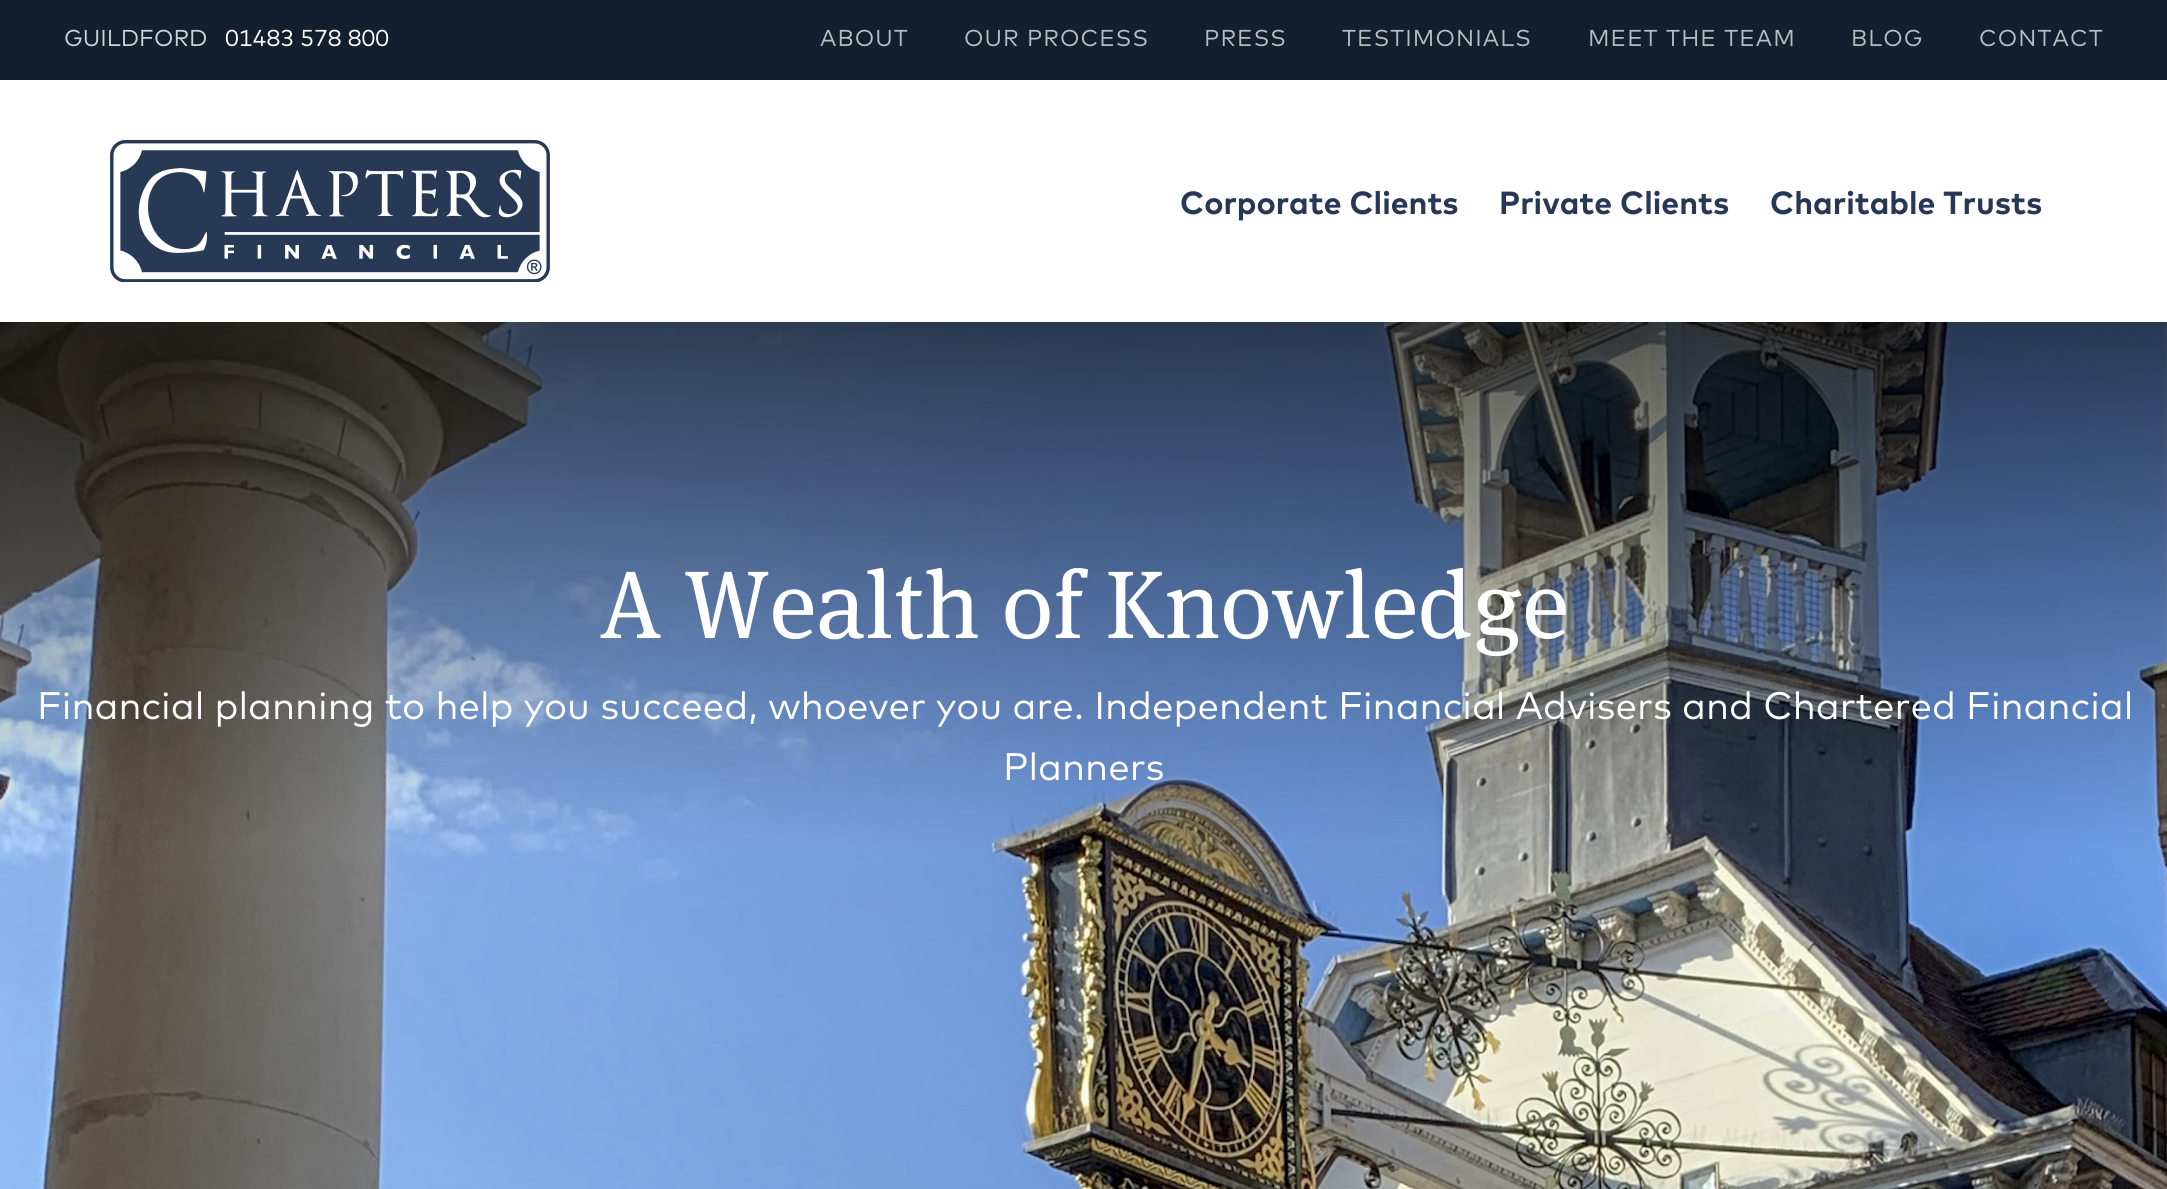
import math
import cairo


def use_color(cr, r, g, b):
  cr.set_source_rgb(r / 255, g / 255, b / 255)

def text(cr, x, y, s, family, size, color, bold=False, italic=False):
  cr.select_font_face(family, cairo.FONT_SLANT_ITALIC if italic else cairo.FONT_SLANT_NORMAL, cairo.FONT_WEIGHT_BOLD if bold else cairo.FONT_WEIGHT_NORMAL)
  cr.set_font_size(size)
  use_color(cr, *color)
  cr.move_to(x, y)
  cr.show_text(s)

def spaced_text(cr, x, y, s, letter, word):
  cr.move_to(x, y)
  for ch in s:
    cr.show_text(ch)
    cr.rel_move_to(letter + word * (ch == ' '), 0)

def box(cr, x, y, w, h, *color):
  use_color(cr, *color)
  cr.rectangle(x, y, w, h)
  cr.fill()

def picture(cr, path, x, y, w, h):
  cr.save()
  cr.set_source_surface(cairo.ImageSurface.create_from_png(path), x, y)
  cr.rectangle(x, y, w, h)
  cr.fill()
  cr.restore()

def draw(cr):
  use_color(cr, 255, 255, 255)
  cr.paint()
  box(cr, 0, 0, 2167, 80, 19, 31, 47)
  picture(cr, "img_01.png", 110, 140, 440, 142)
  picture(cr, "img_02.png", 0, 322, 2167, 867)
  text(cr, 64, 46, "GUILDFORD", "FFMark", 23, (208, 210, 213))
  text(cr, 225, 46, "01483 578 800", "FFMark", 23, (255, 255, 255))
  use_color(cr, 184, 188, 193)
  spaced_text(cr, 820, 46, "ABOUT", 1.1, 0)
  spaced_text(cr, 964, 46, "OUR PROCESS", 1.1, 0)
  spaced_text(cr, 1204, 46, "PRESS", 1.1, 0)
  spaced_text(cr, 1342, 46, "TESTIMONIALS", 1.1, 0)
  spaced_text(cr, 1588, 46, "MEET THE TEAM", 1.1, 0)
  spaced_text(cr, 1851, 46, "BLOG", 1.1, 0)
  spaced_text(cr, 1979, 46, "CONTACT", 1.1, 0)
  text(cr, 1180, 214, "Corporate Clients", "FFMark", 32, (38, 56, 85), bold=True)
  text(cr, 1499, 214, "Private Clients", "FFMark", 32, (38, 56, 85), bold=True)
  text(cr, 1770, 214, "Charitable Trusts", "FFMark", 32, (38, 56, 85), bold=True)
  text(cr, 599, 638, "A Wealth of Knowledge", "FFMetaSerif", 96, (255, 255, 255))
  text(cr, 37, 719, "Financial planning to help you succeed, whoever you are. Independent Financial Advisers and Chartered Financial", "FFMark", 38.4, (255, 255, 255))
  text(cr, 1003, 780, "Planners", "FFMark", 38.4, (255, 255, 255))


surface = cairo.ImageSurface(cairo.FORMAT_RGB24, 2167, 1189)
cr = cairo.Context(surface)
options = cairo.FontOptions()
options.set_hint_metrics(cairo.HINT_METRICS_OFF)
options.set_hint_style(cairo.HINT_STYLE_NONE)
cr.set_font_options(options)
cr.set_miter_limit(4)
draw(cr)
surface.write_to_png("out.png")
